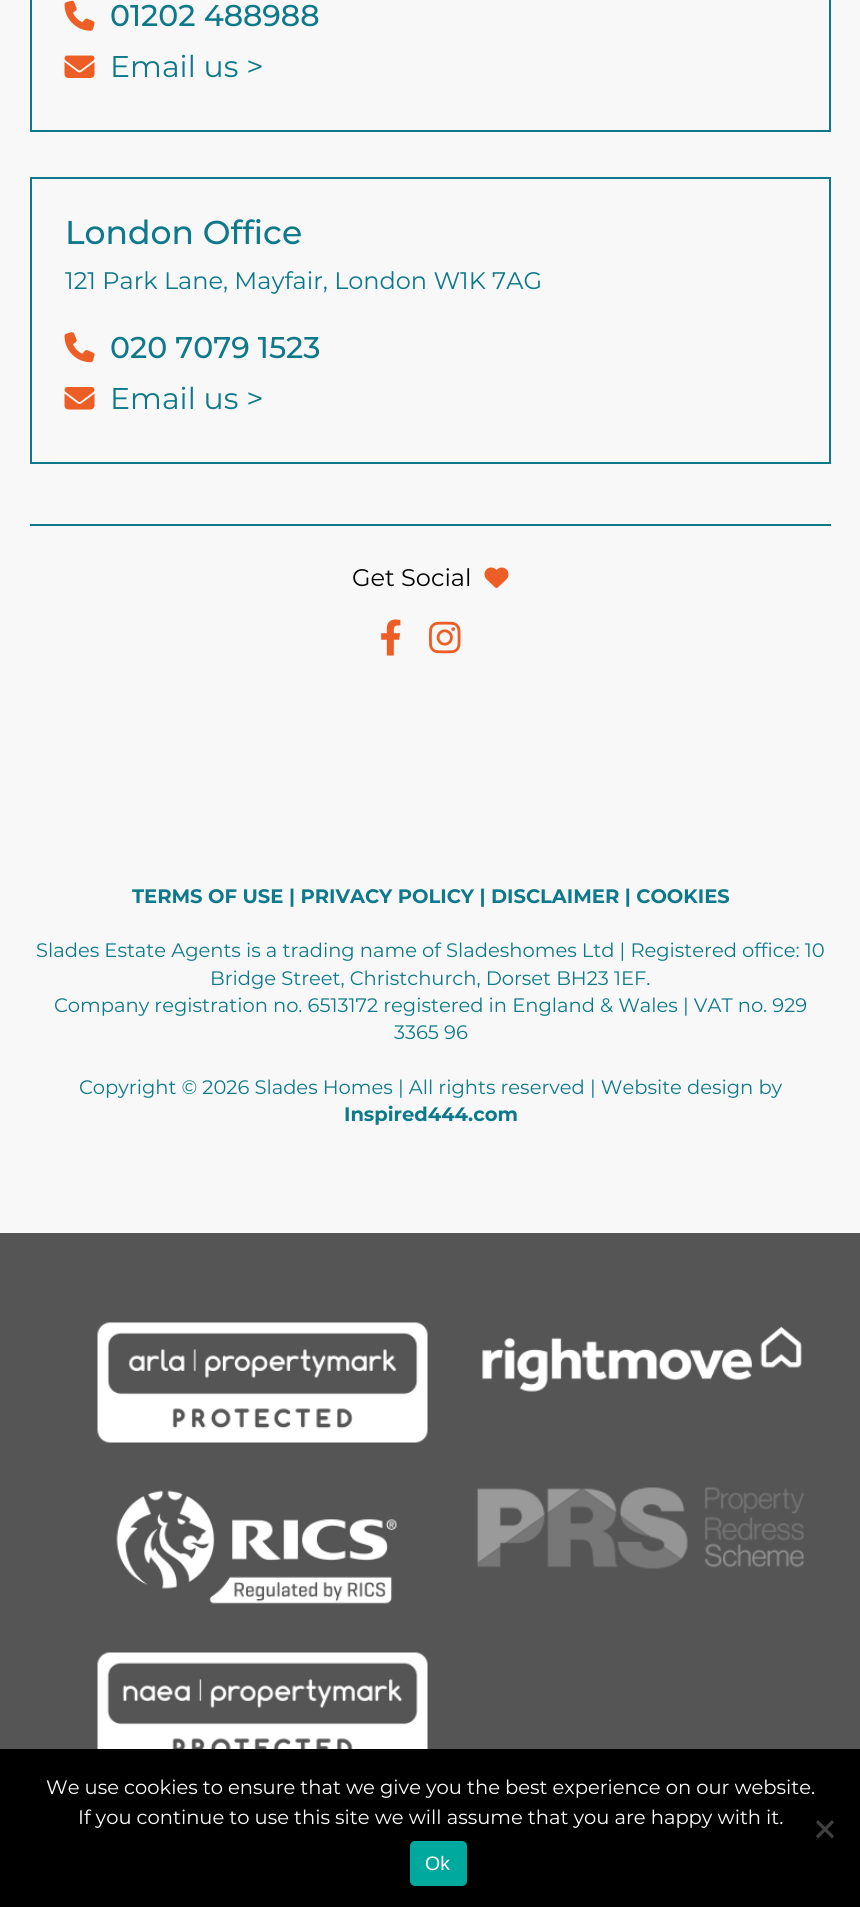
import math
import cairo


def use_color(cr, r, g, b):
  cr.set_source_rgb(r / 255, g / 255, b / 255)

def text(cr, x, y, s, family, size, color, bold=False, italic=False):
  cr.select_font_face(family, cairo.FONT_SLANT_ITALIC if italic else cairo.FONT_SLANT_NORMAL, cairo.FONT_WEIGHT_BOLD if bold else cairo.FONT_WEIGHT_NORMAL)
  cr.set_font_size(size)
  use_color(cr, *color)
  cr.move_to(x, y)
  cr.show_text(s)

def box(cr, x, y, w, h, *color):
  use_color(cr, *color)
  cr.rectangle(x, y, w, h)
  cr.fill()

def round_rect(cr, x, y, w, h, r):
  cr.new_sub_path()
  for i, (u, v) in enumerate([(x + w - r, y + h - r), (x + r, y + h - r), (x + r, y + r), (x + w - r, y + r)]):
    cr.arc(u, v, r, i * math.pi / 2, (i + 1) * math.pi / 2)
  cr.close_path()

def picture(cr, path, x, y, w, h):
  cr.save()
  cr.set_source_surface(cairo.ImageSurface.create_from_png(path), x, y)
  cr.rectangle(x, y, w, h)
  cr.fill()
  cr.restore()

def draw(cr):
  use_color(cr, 248, 248, 248)
  cr.paint()
  box(cr, 30, 524, 801, 2, 14, 121, 139)
  cr.rectangle(31, -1, 799, 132)
  cr.stroke()
  picture(cr, "img_01.png", 64, 0, 31, 31)
  picture(cr, "img_02.png", 64, 55, 31, 23)
  cr.rectangle(31, 178, 799, 285)
  cr.stroke()
  picture(cr, "img_03.png", 64, 332, 31, 31)
  picture(cr, "img_04.png", 64, 387, 31, 23)
  picture(cr, "img_05.png", 484, 567, 25, 21)
  picture(cr, "img_06.png", 381, 619, 20, 37)
  picture(cr, "img_07.png", 429, 621, 32, 33)
  box(cr, 0, 1233, 860, 516, 85, 85, 85)
  picture(cr, "img_08.png", 97, 1322, 331, 121)
  picture(cr, "img_09.png", 482, 1326, 320, 66)
  picture(cr, "img_10.png", 116, 1490, 281, 114)
  picture(cr, "img_11.png", 476, 1487, 328, 82)
  picture(cr, "img_12.png", 97, 1652, 331, 97)
  box(cr, 0, 1749, 860, 158, 0, 0, 0)
  use_color(cr, 64, 64, 64)
  cr.new_path()
  cr.move_to(832, 1820)
  cr.line_to(834, 1822.5)
  cr.line_to(818, 1838.5)
  cr.line_to(816, 1836)
  cr.close_path()
  cr.fill()
  cr.new_path()
  cr.move_to(816, 1822.5)
  cr.line_to(818, 1820)
  cr.line_to(834, 1836)
  cr.line_to(832, 1838.5)
  cr.close_path()
  cr.fill()
  use_color(cr, 0, 169, 157)
  round_rect(cr, 410, 1841, 57, 45, 5)
  cr.fill()
  text(cr, 110, 26, "01202 488988", "Montserrat Medium", 30, (14, 121, 139))
  text(cr, 110, 77, "Email us >", "Montserrat", 30, (14, 121, 139))
  text(cr, 65, 244, "London Office", "Montserrat Medium", 33, (14, 121, 139))
  text(cr, 65, 289, "121 Park Lane, Mayfair, London W1K 7AG", "Montserrat", 24, (14, 121, 139))
  text(cr, 110, 358, "020 7079 1523", "Montserrat Medium", 30, (14, 121, 139))
  text(cr, 110, 409, "Email us >", "Montserrat", 30, (14, 121, 139))
  text(cr, 352, 586, "Get Social", "Montserrat", 24, (0, 0, 0))
  text(cr, 132, 903, "TERMS OF USE | PRIVACY POLICY | DISCLAIMER | COOKIES", "Montserrat", 19.5, (14, 121, 139), bold=True)
  text(cr, 36, 957, "Slades Estate Agents is a trading name of Sladeshomes Ltd | Registered office: 10", "Montserrat", 19.5, (14, 121, 139))
  text(cr, 210, 985, "Bridge Street, Christchurch, Dorset BH23 1EF.", "Montserrat", 19.5, (14, 121, 139))
  text(cr, 54, 1012, "Company registration no. 6513172 registered in England & Wales | VAT no. 929", "Montserrat", 19.5, (14, 121, 139))
  text(cr, 394, 1039, "3365 96", "Montserrat", 19.5, (14, 121, 139))
  text(cr, 79, 1094, "Copyright © 2026 Slades Homes | All rights reserved | Website design by", "Montserrat", 19.5, (14, 121, 139))
  text(cr, 344, 1121, "Inspired444.com", "Montserrat", 19.5, (14, 121, 139), bold=True)
  text(cr, 46, 1794, "We use cookies to ensure that we give you the best experience on our website.", "Montserrat", 19.5, (255, 255, 255))
  text(cr, 78, 1824, "If you continue to use this site we will assume that you are happy with it.", "Montserrat", 19.5, (255, 255, 255))
  text(cr, 425, 1870, "Ok", "Liberation Sans", 19.5, (255, 255, 255))


surface = cairo.ImageSurface(cairo.FORMAT_RGB24, 860, 1907)
cr = cairo.Context(surface)
options = cairo.FontOptions()
options.set_hint_metrics(cairo.HINT_METRICS_OFF)
options.set_hint_style(cairo.HINT_STYLE_NONE)
cr.set_font_options(options)
cr.set_miter_limit(4)
draw(cr)
surface.write_to_png("out.png")
